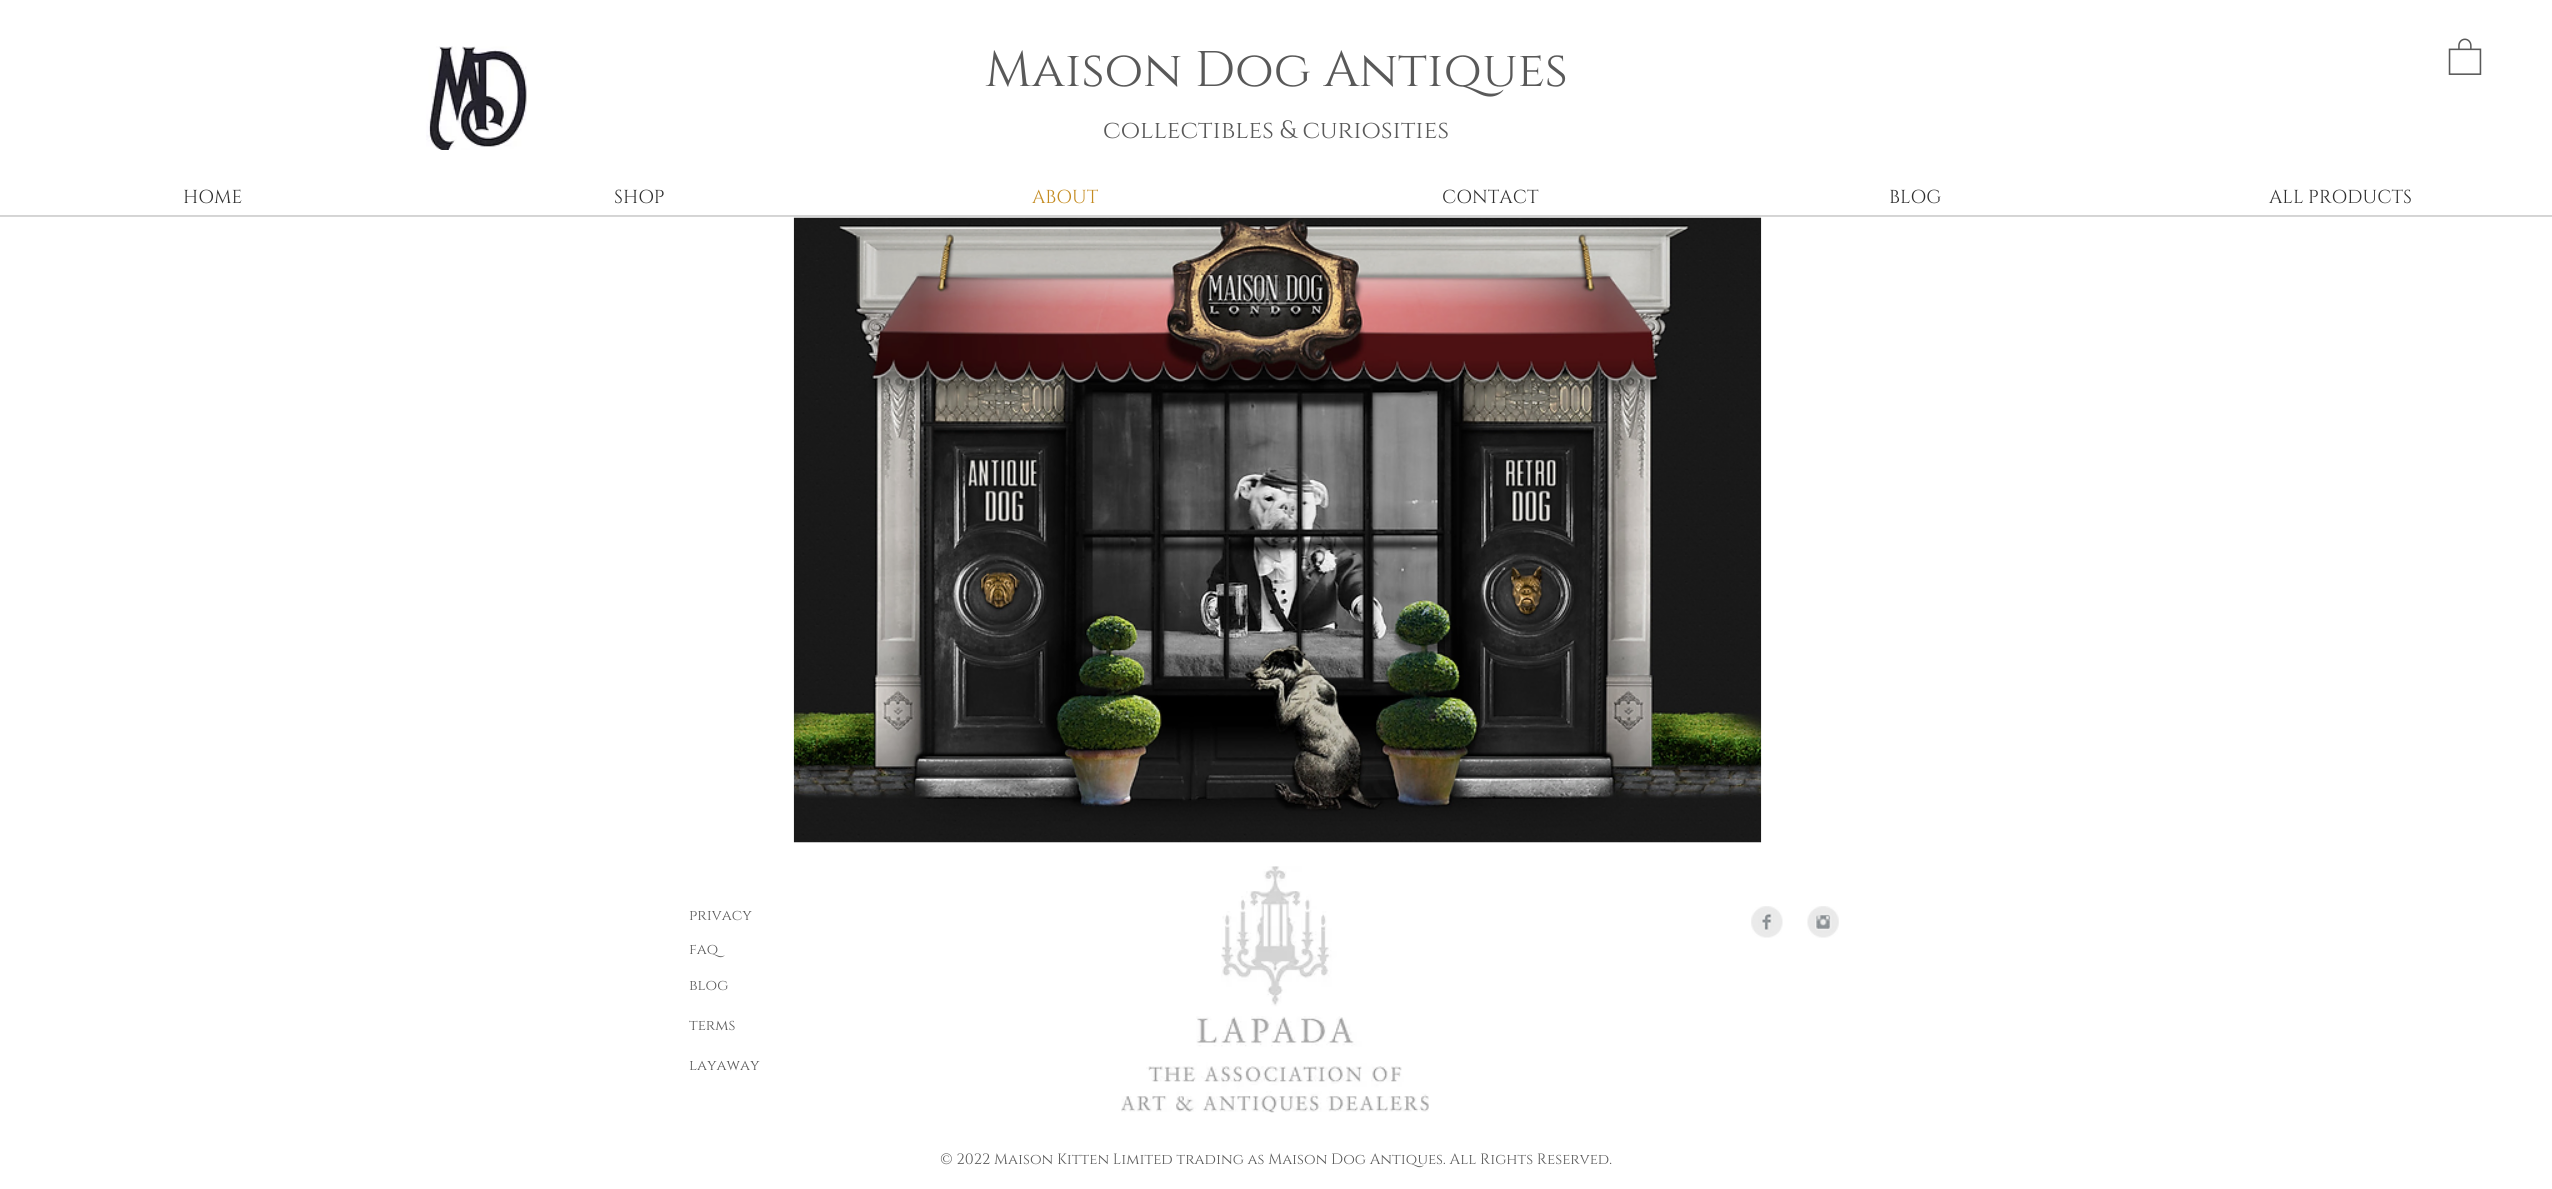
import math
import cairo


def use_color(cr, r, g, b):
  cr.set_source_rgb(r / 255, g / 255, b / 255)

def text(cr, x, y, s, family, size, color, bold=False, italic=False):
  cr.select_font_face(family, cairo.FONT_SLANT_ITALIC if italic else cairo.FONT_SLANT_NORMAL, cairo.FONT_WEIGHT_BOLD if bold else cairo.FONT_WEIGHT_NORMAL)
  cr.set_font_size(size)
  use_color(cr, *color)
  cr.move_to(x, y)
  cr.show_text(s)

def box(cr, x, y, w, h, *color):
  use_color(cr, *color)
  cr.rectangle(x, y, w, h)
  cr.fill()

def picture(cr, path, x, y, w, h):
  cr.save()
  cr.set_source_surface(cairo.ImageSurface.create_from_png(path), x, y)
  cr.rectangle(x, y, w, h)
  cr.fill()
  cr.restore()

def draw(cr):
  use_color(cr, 255, 255, 255)
  cr.paint()
  picture(cr, "img_01.png", 426, 46, 101, 104)
  picture(cr, "img_02.png", 2448, 38, 34, 37)
  box(cr, 0, 215, 2552, 1, 212, 212, 212)
  box(cr, 0, 216, 2552, 1, 214, 214, 214)
  picture(cr, "img_03.png", 793, 217, 969, 626)
  picture(cr, "img_04.png", 1121, 866, 308, 247)
  picture(cr, "img_05.png", 1751, 906, 32, 32)
  picture(cr, "img_06.png", 1807, 906, 32, 32)
  text(cr, 985, 86, "Maison Dog Antiques", "Cinzel", 50, (89, 89, 89))
  text(cr, 1103, 138, "collectibles & curiosities", "Cinzel", 25, (89, 89, 89))
  text(cr, 183, 203, "HOME", "Cinzel", 18.75, (48, 48, 48))
  text(cr, 614, 203, "SHOP", "Cinzel", 18.75, (48, 48, 48))
  text(cr, 1032, 203, "ABOUT", "Cinzel", 18.75, (196, 139, 33))
  text(cr, 1442, 203, "CONTACT", "Cinzel", 18.75, (48, 48, 48))
  text(cr, 1889, 203, "BLOG", "Cinzel", 18.75, (48, 48, 48))
  text(cr, 2269, 203, "ALL PRODUCTS", "Cinzel", 18.75, (48, 48, 48))
  text(cr, 689, 920, "privacy", "Cinzel", 15, (89, 89, 89))
  text(cr, 689, 954, "faq", "Cinzel", 15, (89, 89, 89))
  text(cr, 689, 990, "blog", "Cinzel", 15, (89, 89, 89))
  text(cr, 689, 1030, "terms", "Cinzel", 15, (89, 89, 89))
  text(cr, 689, 1070, "layaway", "Cinzel", 15, (89, 89, 89))
  text(cr, 940, 1164, "© 2022 Maison Kitten Limited trading as Maison Dog Antiques. All Rights Reserved.", "Cinzel", 15, (89, 89, 89))


surface = cairo.ImageSurface(cairo.FORMAT_RGB24, 2552, 1189)
cr = cairo.Context(surface)
options = cairo.FontOptions()
options.set_hint_metrics(cairo.HINT_METRICS_OFF)
options.set_hint_style(cairo.HINT_STYLE_NONE)
cr.set_font_options(options)
cr.set_miter_limit(4)
draw(cr)
surface.write_to_png("out.png")
